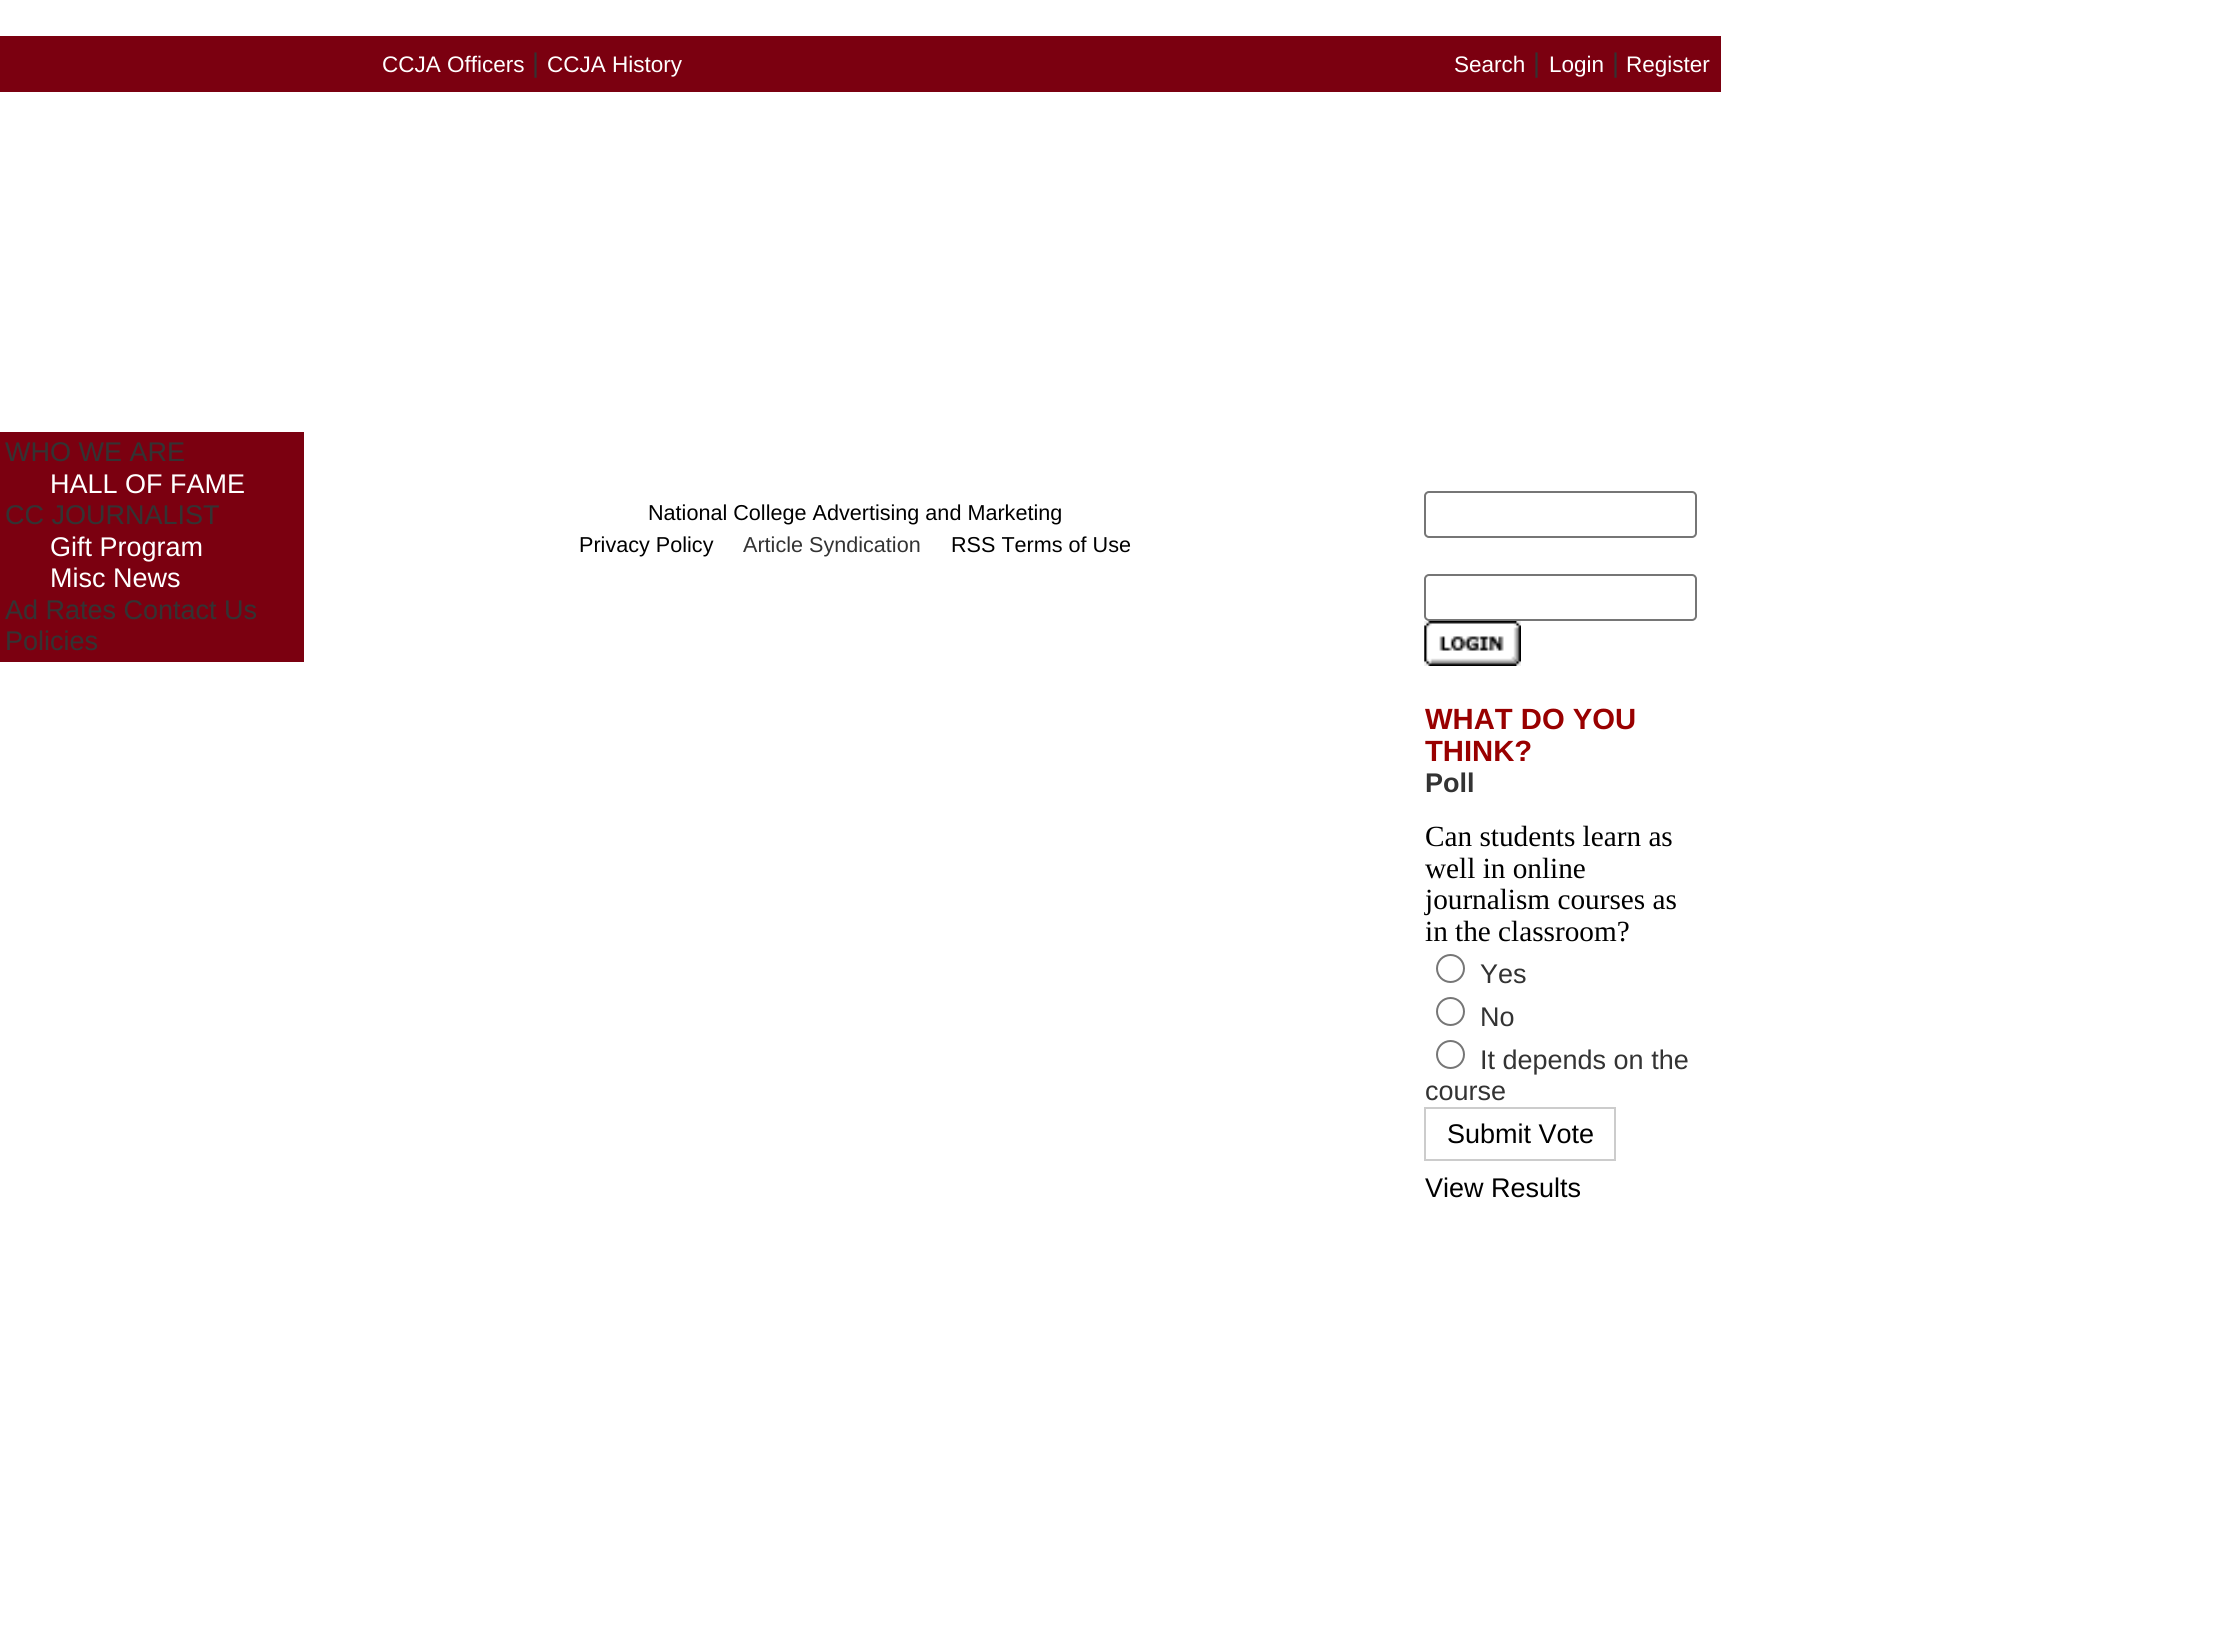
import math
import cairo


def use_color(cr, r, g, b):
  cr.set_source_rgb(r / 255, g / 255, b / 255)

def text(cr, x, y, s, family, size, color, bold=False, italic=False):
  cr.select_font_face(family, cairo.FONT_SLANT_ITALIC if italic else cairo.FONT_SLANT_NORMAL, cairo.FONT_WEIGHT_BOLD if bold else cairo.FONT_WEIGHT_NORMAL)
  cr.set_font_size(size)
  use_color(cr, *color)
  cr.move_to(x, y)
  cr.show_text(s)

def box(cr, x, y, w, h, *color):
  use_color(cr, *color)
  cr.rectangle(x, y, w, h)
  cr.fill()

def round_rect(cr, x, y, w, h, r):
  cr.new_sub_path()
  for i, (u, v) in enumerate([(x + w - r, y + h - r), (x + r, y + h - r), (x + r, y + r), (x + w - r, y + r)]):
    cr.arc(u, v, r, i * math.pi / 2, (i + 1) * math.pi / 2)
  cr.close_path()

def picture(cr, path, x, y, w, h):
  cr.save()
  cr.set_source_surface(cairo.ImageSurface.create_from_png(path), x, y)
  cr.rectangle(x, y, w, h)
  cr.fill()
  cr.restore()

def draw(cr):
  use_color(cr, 255, 255, 255)
  cr.paint()
  box(cr, 0, 36, 1721, 56, 123, 0, 16)
  box(cr, 0, 432, 304, 230, 123, 0, 16)
  round_rect(cr, 1425, 492, 271, 45, 4)
  use_color(cr, 118, 118, 118)
  cr.stroke()
  round_rect(cr, 1425, 575, 271, 45, 4)
  cr.stroke()
  picture(cr, "img_01.png", 1424, 621, 97, 45)
  cr.arc(1450.5, 968.5, 13.5, 0, 2 * math.pi)
  cr.stroke()
  cr.arc(1450.5, 1011.5, 13.5, 0, 2 * math.pi)
  cr.stroke()
  cr.arc(1450.5, 1054.5, 13.5, 0, 2 * math.pi)
  cr.stroke()
  cr.rectangle(1425, 1108, 190, 52)
  use_color(cr, 204, 204, 204)
  cr.stroke()
  text(cr, 382, 72, "CCJA Officers", "Liberation Sans", 22.5, (255, 255, 255))
  text(cr, 532, 72, "|", "Liberation Sans", 27, (51, 51, 51))
  text(cr, 547, 72, "CCJA History", "Liberation Sans", 22.5, (255, 255, 255))
  text(cr, 1454, 72, "Search", "Liberation Sans", 22.5, (255, 255, 255))
  text(cr, 1533, 72, "|", "Liberation Sans", 27, (51, 51, 51))
  text(cr, 1549, 72, "Login", "Liberation Sans", 22.5, (255, 255, 255))
  text(cr, 1612, 72, "|", "Liberation Sans", 27, (51, 51, 51))
  text(cr, 1626, 72, "Register", "Liberation Sans", 22.5, (255, 255, 255))
  text(cr, 5, 461, "WHO WE ARE", "Liberation Sans", 27, (51, 51, 51))
  text(cr, 50, 493, "HALL OF FAME", "Liberation Sans", 27, (255, 255, 255))
  text(cr, 5, 524, "CC JOURNALIST", "Liberation Sans", 27, (51, 51, 51))
  text(cr, 50, 556, "Gift Program", "Liberation Sans", 27, (255, 255, 255))
  text(cr, 50, 587, "Misc News", "Liberation Sans", 27, (255, 255, 255))
  text(cr, 5, 619, "Ad Rates Contact Us", "Liberation Sans", 27, (51, 51, 51))
  text(cr, 5, 650, "Policies", "Liberation Sans", 27, (51, 51, 51))
  text(cr, 648, 520, "National College Advertising and Marketing", "Liberation Sans", 21.6, (0, 0, 0))
  text(cr, 579, 552, "Privacy Policy", "Liberation Sans", 21.6, (0, 0, 0))
  text(cr, 743, 552, "Article Syndication", "Liberation Sans", 21.6, (51, 51, 51))
  text(cr, 951, 552, "RSS Terms of Use", "Liberation Sans", 21.6, (0, 0, 0))
  text(cr, 1425, 729, "WHAT DO YOU", "Liberation Sans", 29.25, (153, 0, 0), bold=True)
  text(cr, 1425, 761, "THINK?", "Liberation Sans", 29.25, (153, 0, 0), bold=True)
  text(cr, 1425, 792, "Poll", "Liberation Sans", 27, (51, 51, 51), bold=True)
  text(cr, 1425, 846, "Can students learn as", "Liberation Serif", 29.25, (0, 0, 0))
  text(cr, 1425, 878, "well in online", "Liberation Serif", 29.25, (0, 0, 0))
  text(cr, 1425, 909, "journalism courses as", "Liberation Serif", 29.25, (0, 0, 0))
  text(cr, 1425, 941, "in the classroom?", "Liberation Serif", 29.25, (0, 0, 0))
  text(cr, 1480, 983, "Yes", "Liberation Sans", 27, (51, 51, 51))
  text(cr, 1480, 1026, "No", "Liberation Sans", 27, (51, 51, 51))
  text(cr, 1480, 1069, "It depends on the", "Liberation Sans", 27, (51, 51, 51))
  text(cr, 1425, 1100, "course", "Liberation Sans", 27, (51, 51, 51))
  text(cr, 1447, 1143, "Submit Vote", "Liberation Sans", 27, (0, 0, 0))
  text(cr, 1425, 1197, "View Results", "Liberation Sans", 27, (0, 0, 0))


surface = cairo.ImageSurface(cairo.FORMAT_RGB24, 2224, 1625)
cr = cairo.Context(surface)
options = cairo.FontOptions()
options.set_hint_metrics(cairo.HINT_METRICS_OFF)
options.set_hint_style(cairo.HINT_STYLE_NONE)
cr.set_font_options(options)
cr.set_miter_limit(4)
draw(cr)
surface.write_to_png("out.png")
